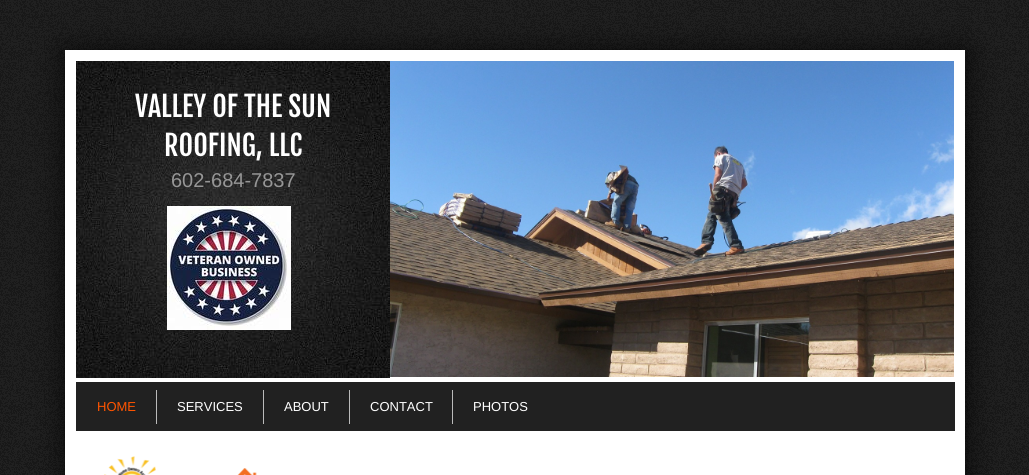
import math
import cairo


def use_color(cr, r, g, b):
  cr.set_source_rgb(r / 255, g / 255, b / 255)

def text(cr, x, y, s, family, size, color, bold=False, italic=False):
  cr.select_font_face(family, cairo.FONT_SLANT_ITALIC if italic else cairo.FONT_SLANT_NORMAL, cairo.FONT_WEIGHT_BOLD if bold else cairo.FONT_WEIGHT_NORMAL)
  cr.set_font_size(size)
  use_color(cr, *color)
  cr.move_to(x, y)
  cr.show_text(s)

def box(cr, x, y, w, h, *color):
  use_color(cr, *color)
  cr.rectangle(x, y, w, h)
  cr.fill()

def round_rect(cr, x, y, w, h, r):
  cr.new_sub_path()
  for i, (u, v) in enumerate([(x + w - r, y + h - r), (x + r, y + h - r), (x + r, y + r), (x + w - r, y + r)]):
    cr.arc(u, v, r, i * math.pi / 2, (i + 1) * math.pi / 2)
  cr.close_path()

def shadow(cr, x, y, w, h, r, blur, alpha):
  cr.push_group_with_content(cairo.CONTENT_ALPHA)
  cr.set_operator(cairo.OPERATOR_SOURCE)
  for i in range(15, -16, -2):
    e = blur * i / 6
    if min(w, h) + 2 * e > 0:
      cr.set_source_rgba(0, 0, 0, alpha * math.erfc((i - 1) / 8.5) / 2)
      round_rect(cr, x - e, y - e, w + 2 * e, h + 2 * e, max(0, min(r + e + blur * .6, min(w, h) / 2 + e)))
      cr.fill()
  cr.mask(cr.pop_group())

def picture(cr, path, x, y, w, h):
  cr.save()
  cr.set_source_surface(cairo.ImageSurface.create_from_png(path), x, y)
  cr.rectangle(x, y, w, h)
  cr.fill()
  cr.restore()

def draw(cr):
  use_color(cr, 255, 255, 255)
  cr.paint()
  picture(cr, "img_01.png", 0, 0, 1029, 475)
  use_color(cr, 0, 0, 0)
  shadow(cr, 66, 51, 900, 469, 0, 15, 0.8)
  box(cr, 65, 50, 900, 425, 255, 255, 255)
  picture(cr, "img_02.png", 76, 61, 314, 317)
  picture(cr, "img_03.png", 390, 61, 564, 316)
  picture(cr, "img_04.png", 167, 206, 124, 124)
  box(cr, 76, 382, 879, 49, 33, 33, 33)
  box(cr, 156, 390, 1, 34, 187, 187, 187)
  box(cr, 263, 390, 1, 34, 187, 187, 187)
  box(cr, 349, 390, 1, 34, 187, 187, 187)
  box(cr, 452, 390, 1, 34, 187, 187, 187)
  picture(cr, "img_05.png", 104, 456, 52, 19)
  picture(cr, "img_06.png", 237, 468, 20, 7)
  text(cr, 135, 117, "VALLEY OF THE SUN", "Fjalla One", 28, (255, 255, 255))
  text(cr, 164, 156, "ROOFING, LLC", "Fjalla One", 28, (255, 255, 255))
  text(cr, 171, 187, "602-684-7837", "Liberation Sans", 20, (150, 150, 150))
  text(cr, 97, 411, "HOME", "Liberation Sans", 13, (255, 84, 0))
  text(cr, 177, 411, "SERVICES", "Liberation Sans", 13, (255, 255, 255))
  text(cr, 284, 411, "ABOUT", "Liberation Sans", 13, (255, 255, 255))
  text(cr, 370, 411, "CONTACT", "Liberation Sans", 13, (255, 255, 255))
  text(cr, 473, 411, "PHOTOS", "Liberation Sans", 13, (255, 255, 255))


surface = cairo.ImageSurface(cairo.FORMAT_RGB24, 1029, 475)
cr = cairo.Context(surface)
options = cairo.FontOptions()
options.set_hint_metrics(cairo.HINT_METRICS_OFF)
options.set_hint_style(cairo.HINT_STYLE_NONE)
cr.set_font_options(options)
cr.set_miter_limit(4)
draw(cr)
surface.write_to_png("out.png")
